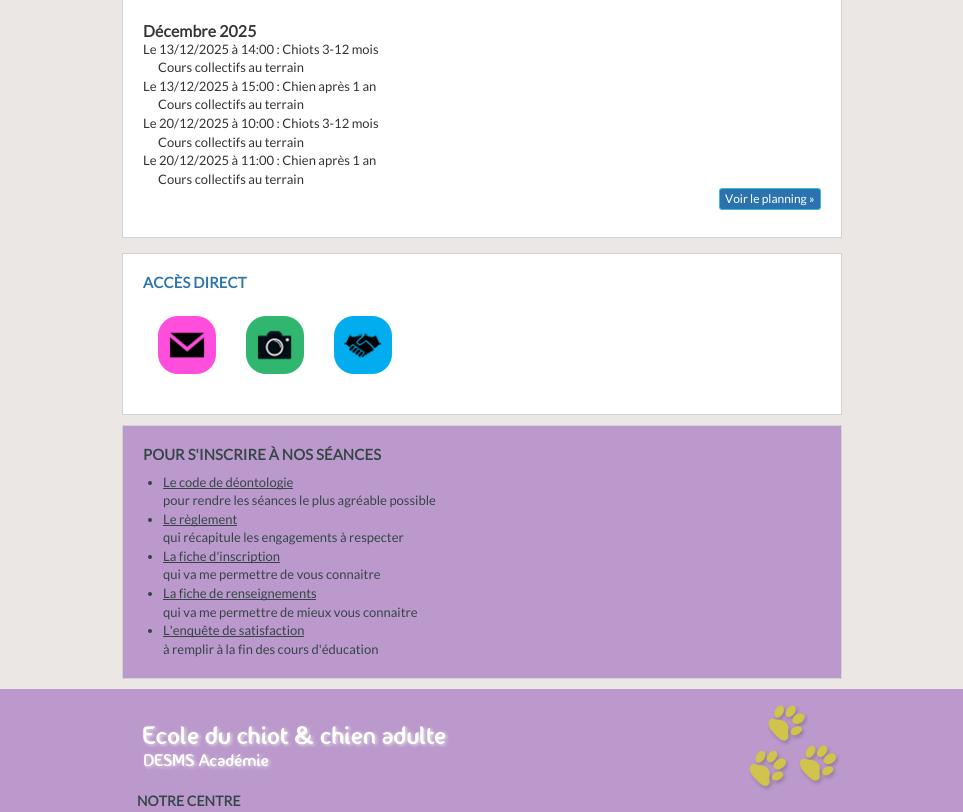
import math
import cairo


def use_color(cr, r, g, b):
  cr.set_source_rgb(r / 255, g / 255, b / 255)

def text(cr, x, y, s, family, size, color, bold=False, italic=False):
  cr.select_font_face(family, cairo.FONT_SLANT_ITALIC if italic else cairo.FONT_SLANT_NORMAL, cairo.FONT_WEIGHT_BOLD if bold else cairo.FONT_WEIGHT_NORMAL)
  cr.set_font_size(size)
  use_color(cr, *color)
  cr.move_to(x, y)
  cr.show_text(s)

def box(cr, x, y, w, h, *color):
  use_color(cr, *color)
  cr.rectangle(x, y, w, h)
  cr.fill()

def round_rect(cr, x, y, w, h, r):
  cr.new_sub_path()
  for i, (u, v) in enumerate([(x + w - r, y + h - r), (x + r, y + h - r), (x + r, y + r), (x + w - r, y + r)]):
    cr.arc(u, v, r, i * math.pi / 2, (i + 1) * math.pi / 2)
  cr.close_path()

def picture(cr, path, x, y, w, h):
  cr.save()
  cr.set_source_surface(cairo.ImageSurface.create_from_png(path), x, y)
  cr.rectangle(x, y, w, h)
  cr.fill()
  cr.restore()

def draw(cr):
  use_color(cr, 235, 231, 228)
  cr.paint()
  use_color(cr, 255, 255, 255)
  cr.rectangle(122.5, -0.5, 719, 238)
  cr.fill_preserve()
  use_color(cr, 211, 209, 209)
  cr.set_line_width(1)
  cr.stroke()
  use_color(cr, 43, 115, 175)
  round_rect(cr, 719.5, 188.5, 101, 21, 2.5)
  cr.fill_preserve()
  use_color(cr, 70, 184, 218)
  cr.stroke()
  use_color(cr, 255, 255, 255)
  cr.rectangle(122.5, 253.5, 719, 161)
  cr.fill_preserve()
  use_color(cr, 211, 209, 209)
  cr.stroke()
  use_color(cr, 255, 78, 220)
  round_rect(cr, 158, 316, 58, 58, 20)
  cr.fill()
  picture(cr, "img_01.png", 169, 332, 36, 26)
  use_color(cr, 48, 182, 111)
  round_rect(cr, 246, 316, 58, 58, 20)
  cr.fill()
  picture(cr, "img_02.png", 257, 330, 35, 30)
  use_color(cr, 1, 173, 239)
  round_rect(cr, 334, 316, 58, 58, 20)
  cr.fill()
  picture(cr, "img_03.png", 344, 333, 38, 25)
  use_color(cr, 187, 153, 204)
  cr.rectangle(122.5, 425.5, 719, 253)
  cr.fill_preserve()
  use_color(cr, 211, 209, 209)
  cr.stroke()
  use_color(cr, 53, 69, 69)
  cr.arc(150, 483, 2, 0, 2 * math.pi)
  cr.fill()
  box(cr, 163, 488, 130, 1, 53, 69, 69)
  cr.arc(150, 520, 2, 0, 2 * math.pi)
  cr.fill()
  box(cr, 163, 525, 74, 1, 53, 69, 69)
  cr.arc(150, 557, 2, 0, 2 * math.pi)
  cr.fill()
  box(cr, 163, 562, 117, 1, 53, 69, 69)
  cr.arc(150, 594, 2, 0, 2 * math.pi)
  cr.fill()
  box(cr, 163, 599, 153, 1, 53, 69, 69)
  cr.arc(150, 631, 2, 0, 2 * math.pi)
  cr.fill()
  box(cr, 163, 636, 141, 1, 53, 69, 69)
  box(cr, 0, 689, 963, 123, 187, 153, 204)
  picture(cr, "img_04.png", 749, 705, 91, 86)
  picture(cr, "img_05.png", 142, 725, 307, 45)
  text(cr, 143, 37, "Décembre 2025", "Lato", 16, (51, 51, 51), bold=True)
  text(cr, 143, 54, "Le 13/12/2025 à 14:00 : Chiots 3-12 mois", "Lato", 13, (51, 51, 51))
  text(cr, 158, 72, "Cours collectifs au terrain", "Lato", 13, (51, 51, 51))
  text(cr, 143, 91, "Le 13/12/2025 à 15:00 : Chien après 1 an", "Lato", 13, (51, 51, 51))
  text(cr, 158, 109, "Cours collectifs au terrain", "Lato", 13, (51, 51, 51))
  text(cr, 143, 128, "Le 20/12/2025 à 10:00 : Chiots 3-12 mois", "Lato", 13, (51, 51, 51))
  text(cr, 158, 147, "Cours collectifs au terrain", "Lato", 13, (51, 51, 51))
  text(cr, 143, 165, "Le 20/12/2025 à 11:00 : Chien après 1 an", "Lato", 13, (51, 51, 51))
  text(cr, 158, 184, "Cours collectifs au terrain", "Lato", 13, (51, 51, 51))
  text(cr, 725, 203, "Voir le planning »", "Lato", 12, (255, 255, 255))
  text(cr, 143, 288, "ACCÈS DIRECT", "Lato", 15, (43, 115, 175), bold=True)
  text(cr, 143, 460, "POUR S'INSCRIRE À NOS SÉANCES", "Lato", 15, (53, 69, 69), bold=True)
  text(cr, 163, 487, "Le code de déontologie", "Lato", 13, (53, 69, 69))
  text(cr, 163, 505, "pour rendre les séances le plus agréable possible", "Lato", 13, (53, 69, 69))
  text(cr, 163, 524, "Le règlement", "Lato", 13, (53, 69, 69))
  text(cr, 163, 542, "qui récapitule les engagements à respecter", "Lato", 13, (53, 69, 69))
  text(cr, 163, 561, "La fiche d'inscription", "Lato", 13, (53, 69, 69))
  text(cr, 163, 579, "qui va me permettre de vous connaitre", "Lato", 13, (53, 69, 69))
  text(cr, 163, 598, "La fiche de renseignements", "Lato", 13, (53, 69, 69))
  text(cr, 163, 617, "qui va me permettre de mieux vous connaitre", "Lato", 13, (53, 69, 69))
  text(cr, 163, 635, "L'enquête de satisfaction", "Lato", 13, (53, 69, 69))
  text(cr, 163, 654, "à remplir à la fin des cours d'éducation", "Lato", 13, (53, 69, 69))
  text(cr, 137, 806, "NOTRE CENTRE", "Lato", 14, (53, 69, 69), bold=True)


surface = cairo.ImageSurface(cairo.FORMAT_RGB24, 963, 812)
cr = cairo.Context(surface)
options = cairo.FontOptions()
options.set_hint_metrics(cairo.HINT_METRICS_OFF)
options.set_hint_style(cairo.HINT_STYLE_NONE)
cr.set_font_options(options)
cr.set_miter_limit(4)
draw(cr)
surface.write_to_png("out.png")
